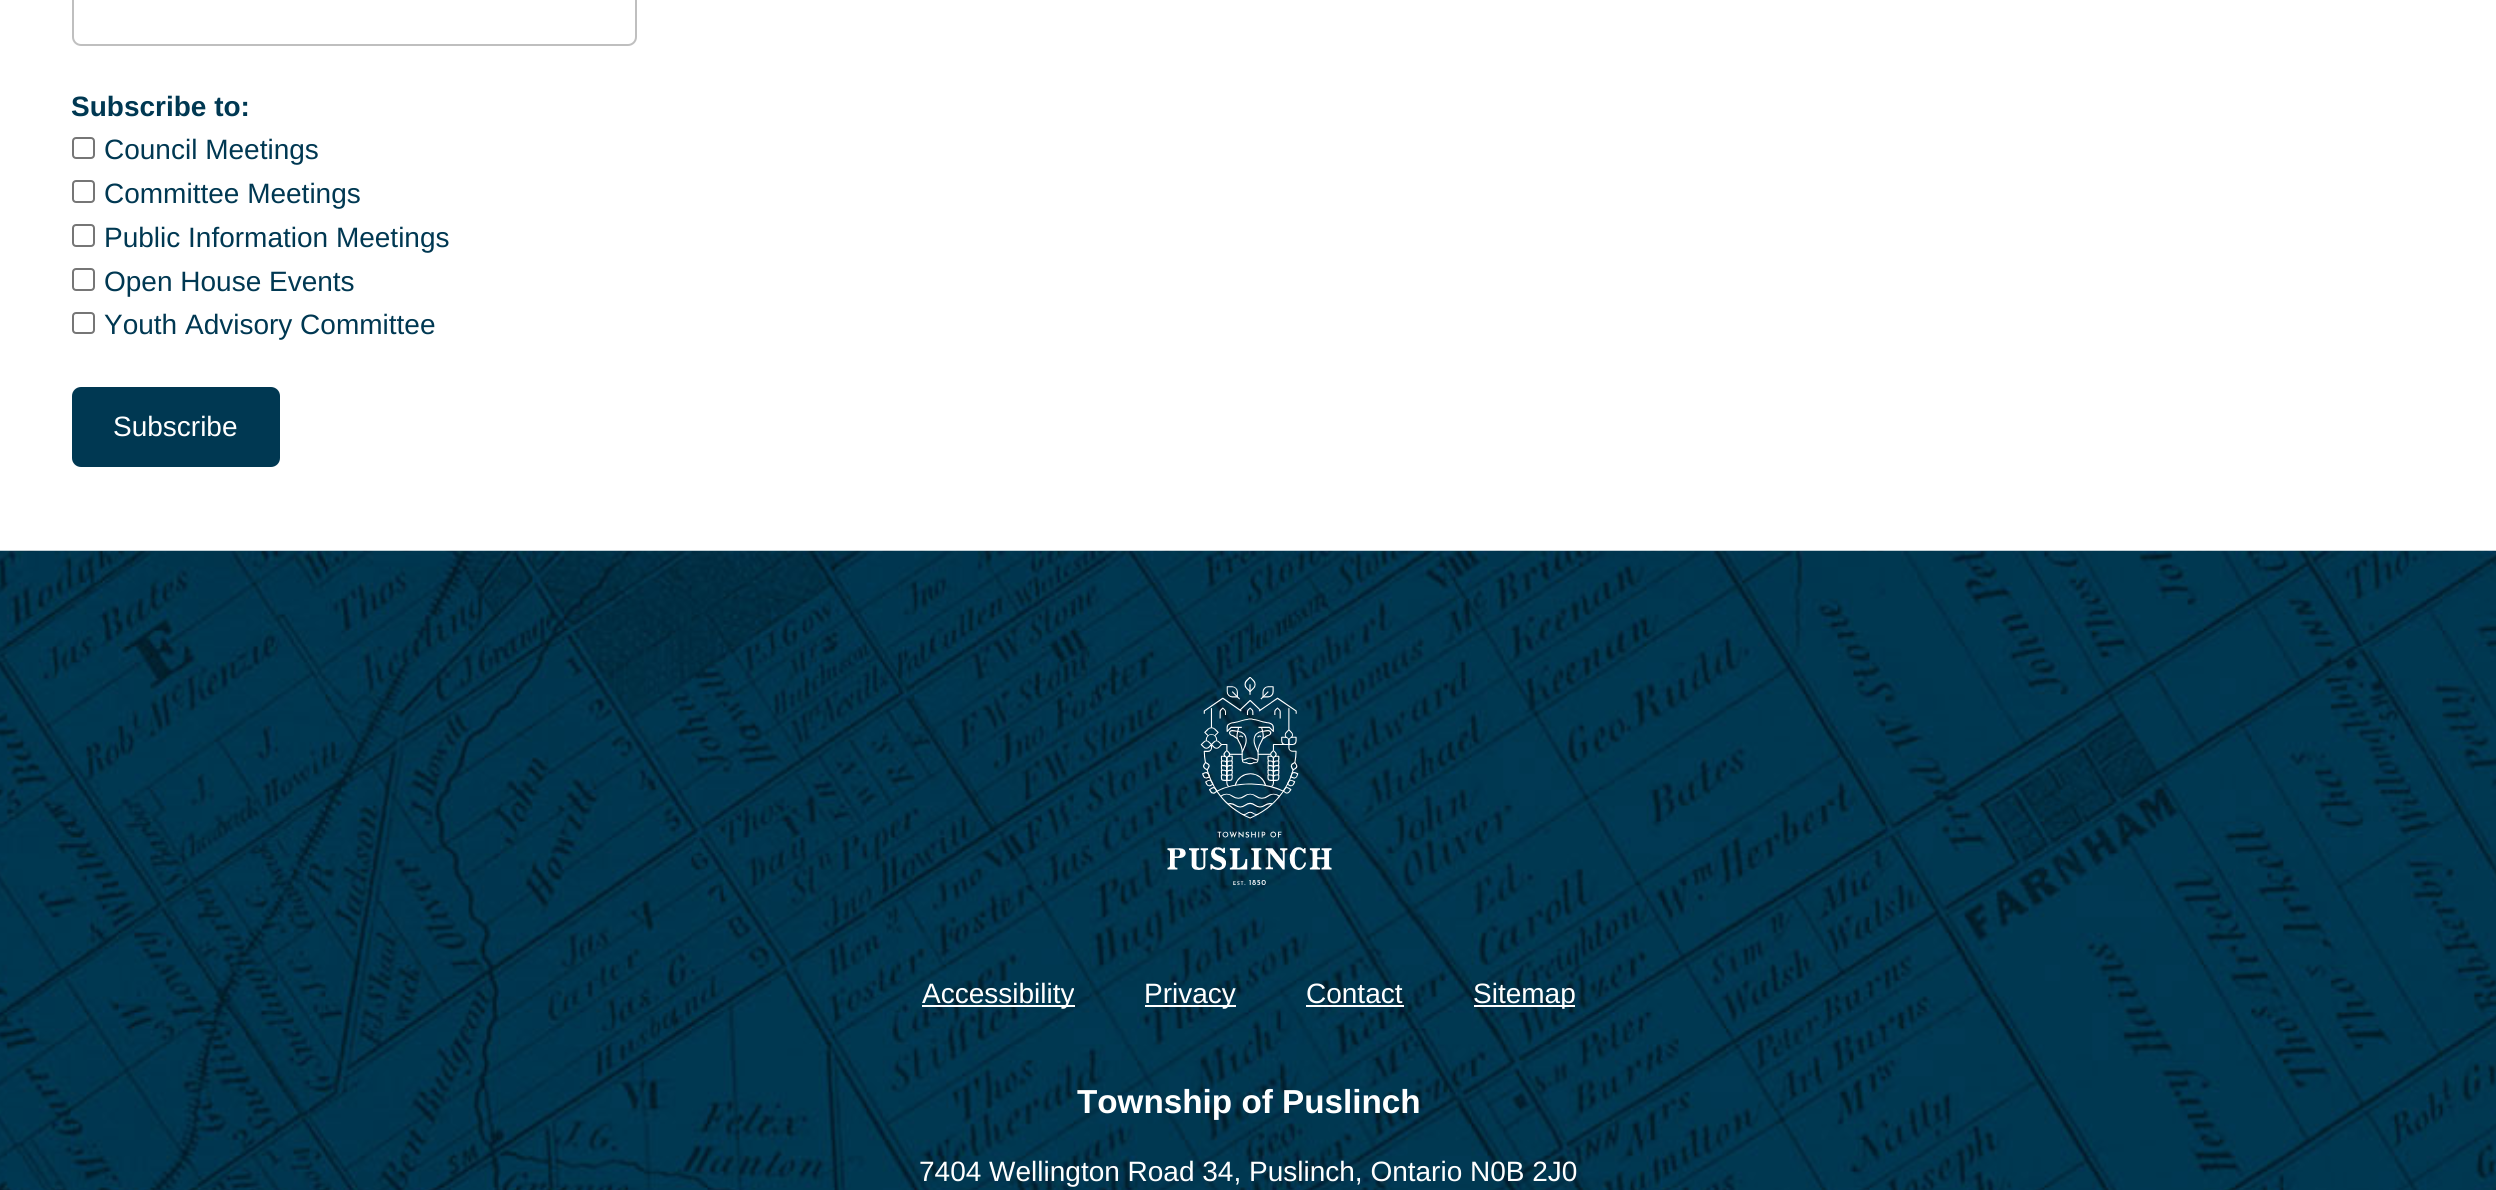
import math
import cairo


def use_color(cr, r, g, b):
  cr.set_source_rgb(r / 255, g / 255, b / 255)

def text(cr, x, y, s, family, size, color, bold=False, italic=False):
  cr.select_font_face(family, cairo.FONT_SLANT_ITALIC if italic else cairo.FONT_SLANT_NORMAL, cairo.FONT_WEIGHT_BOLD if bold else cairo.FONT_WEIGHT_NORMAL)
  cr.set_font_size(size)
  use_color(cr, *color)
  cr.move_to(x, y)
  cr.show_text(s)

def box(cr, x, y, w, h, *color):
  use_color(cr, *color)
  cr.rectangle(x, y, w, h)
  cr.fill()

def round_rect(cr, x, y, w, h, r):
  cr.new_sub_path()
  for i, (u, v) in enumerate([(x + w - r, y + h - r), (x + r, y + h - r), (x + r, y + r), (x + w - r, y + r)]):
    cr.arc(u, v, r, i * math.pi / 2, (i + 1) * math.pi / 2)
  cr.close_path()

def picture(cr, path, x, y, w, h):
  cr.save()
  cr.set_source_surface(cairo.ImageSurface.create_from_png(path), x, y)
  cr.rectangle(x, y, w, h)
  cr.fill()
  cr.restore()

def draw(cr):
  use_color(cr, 255, 255, 255)
  cr.paint()
  round_rect(cr, 73, -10, 563, 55, 8)
  use_color(cr, 191, 191, 191)
  cr.stroke()
  round_rect(cr, 73, 138, 21, 20, 3)
  use_color(cr, 118, 118, 118)
  cr.stroke()
  round_rect(cr, 73, 181, 21, 21, 3)
  cr.stroke()
  round_rect(cr, 73, 225, 21, 21, 3)
  cr.stroke()
  round_rect(cr, 73, 269, 21, 21, 3)
  cr.stroke()
  round_rect(cr, 73, 313, 21, 20, 3)
  cr.stroke()
  use_color(cr, 0, 56, 82)
  round_rect(cr, 72, 387, 208, 80, 9)
  cr.fill()
  picture(cr, "img_01.png", 0, 550, 2496, 640)
  picture(cr, "img_02.png", 1167, 677, 165, 208)
  box(cr, 922, 1005, 153, 2, 255, 255, 255)
  box(cr, 1145, 1005, 91, 2, 255, 255, 255)
  box(cr, 1306, 1005, 98, 2, 255, 255, 255)
  box(cr, 1474, 1005, 101, 2, 255, 255, 255)
  text(cr, 71, 116, "Subscribe to:", "Liberation Sans", 28, (0, 56, 82), bold=True)
  text(cr, 104, 159, "Council Meetings", "Liberation Sans", 28, (0, 56, 82))
  text(cr, 104, 203, "Committee Meetings", "Liberation Sans", 28, (0, 56, 82))
  text(cr, 104, 247, "Public Information Meetings", "Liberation Sans", 28, (0, 56, 82))
  text(cr, 104, 291, "Open House Events", "Liberation Sans", 28, (0, 56, 82))
  text(cr, 104, 334, "Youth Advisory Committee", "Liberation Sans", 28, (0, 56, 82))
  text(cr, 113, 436, "Subscribe", "Liberation Sans", 28, (255, 255, 255))
  text(cr, 922, 1003, "Accessibility", "Liberation Sans", 28, (255, 255, 255))
  text(cr, 1144, 1003, "Privacy", "Liberation Sans", 28, (255, 255, 255))
  text(cr, 1306, 1003, "Contact", "Liberation Sans", 28, (255, 255, 255))
  text(cr, 1473, 1003, "Sitemap", "Liberation Sans", 28, (255, 255, 255))
  text(cr, 1077, 1113, "Township of Puslinch", "Liberation Sans", 33.25, (255, 255, 255), bold=True)
  text(cr, 919, 1181, "7404 Wellington Road 34, Puslinch, Ontario N0B 2J0", "Liberation Sans", 28, (255, 255, 255))


surface = cairo.ImageSurface(cairo.FORMAT_RGB24, 2496, 1190)
cr = cairo.Context(surface)
options = cairo.FontOptions()
options.set_hint_metrics(cairo.HINT_METRICS_OFF)
options.set_hint_style(cairo.HINT_STYLE_NONE)
cr.set_font_options(options)
cr.set_miter_limit(4)
draw(cr)
surface.write_to_png("out.png")
